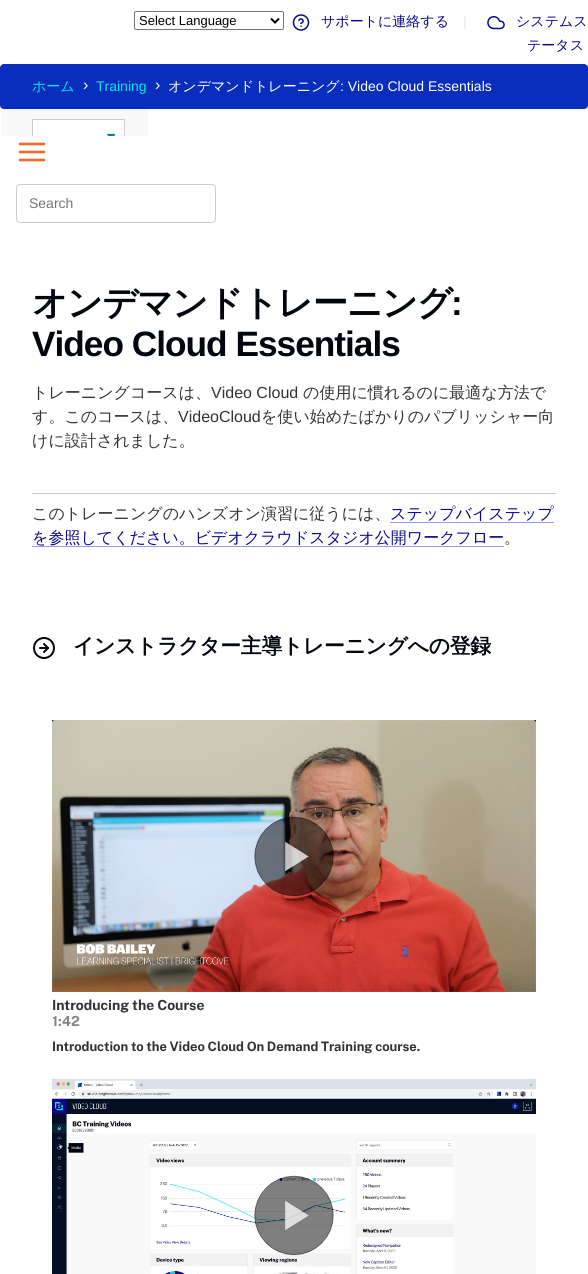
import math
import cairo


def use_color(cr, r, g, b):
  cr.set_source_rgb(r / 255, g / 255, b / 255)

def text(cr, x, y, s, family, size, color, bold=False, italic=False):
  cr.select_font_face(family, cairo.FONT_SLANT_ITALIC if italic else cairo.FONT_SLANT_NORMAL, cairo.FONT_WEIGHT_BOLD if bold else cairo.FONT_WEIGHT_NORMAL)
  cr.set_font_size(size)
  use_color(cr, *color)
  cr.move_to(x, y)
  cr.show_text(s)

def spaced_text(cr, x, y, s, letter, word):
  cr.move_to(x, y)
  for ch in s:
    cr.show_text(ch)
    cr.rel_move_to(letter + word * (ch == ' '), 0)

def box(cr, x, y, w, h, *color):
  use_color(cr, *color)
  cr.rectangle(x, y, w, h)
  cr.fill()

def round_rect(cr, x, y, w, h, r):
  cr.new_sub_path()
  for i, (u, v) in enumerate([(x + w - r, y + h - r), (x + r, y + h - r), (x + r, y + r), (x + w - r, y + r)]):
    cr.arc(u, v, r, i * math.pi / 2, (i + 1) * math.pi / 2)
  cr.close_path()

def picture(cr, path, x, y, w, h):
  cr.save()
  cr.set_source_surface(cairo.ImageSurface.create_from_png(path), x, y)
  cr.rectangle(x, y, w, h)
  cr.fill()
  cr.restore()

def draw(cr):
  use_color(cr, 255, 255, 255)
  cr.paint()
  round_rect(cr, 134.5, 11.5, 149, 18, 1.5)
  use_color(cr, 118, 118, 118)
  cr.set_line_width(1)
  cr.stroke()
  cr.new_path()
  cr.move_to(271, 18.5)
  cr.line_to(275, 22.5)
  cr.line_to(279, 18.5)
  use_color(cr, 0, 0, 0)
  cr.set_line_width(2)
  cr.stroke()
  picture(cr, "img_01.png", 292, 14, 18, 17)
  picture(cr, "img_02.png", 487, 16, 18, 14)
  use_color(cr, 9, 45, 189)
  round_rect(cr, 0, 64, 588, 45, 4)
  cr.fill()
  box(cr, 1, 109, 147, 27, 249, 249, 249)
  box(cr, 33, 120, 91, 16, 255, 255, 255)
  picture(cr, "img_03.png", 107, 133, 8, 3)
  cr.rectangle(32.5, 119.5, 92, 32)
  use_color(cr, 204, 204, 204)
  cr.set_line_width(1)
  cr.stroke()
  box(cr, 32, 136, 93, 16, 255, 255, 255)
  cr.new_path()
  cr.move_to(20, 152)
  cr.line_to(44, 152)
  cr.move_to(20, 144)
  cr.line_to(44, 144)
  cr.move_to(20, 160)
  cr.line_to(44, 160)
  use_color(cr, 239, 108, 42)
  cr.set_line_width(2.7)
  cr.set_line_cap(cairo.LINE_CAP_ROUND)
  cr.set_line_join(cairo.LINE_JOIN_ROUND)
  cr.stroke()
  round_rect(cr, 16.5, 184.5, 199, 38, 3.5)
  use_color(cr, 204, 204, 204)
  cr.set_line_width(1)
  cr.set_line_cap(cairo.LINE_CAP_BUTT)
  cr.set_line_join(cairo.LINE_JOIN_MITER)
  cr.stroke()
  box(cr, 32, 493, 524, 1, 204, 204, 204)
  box(cr, 390, 522, 164, 1, 153, 153, 255)
  box(cr, 32, 546, 472, 1, 153, 153, 255)
  picture(cr, "img_04.png", 33, 637, 22, 22)
  picture(cr, "img_05.png", 52, 720, 484, 554)
  text(cr, 139, 25, "Select Language", "Liberation Sans", 13, (0, 0, 0))
  text(cr, 321, 26, "サポートに連絡する", "WenQuanYi Zen Hei Medium", 14, (8, 8, 140))
  text(cr, 463, 26, "|", "Liberation Sans", 14, (229, 230, 230))
  text(cr, 516, 26, "システムス", "WenQuanYi Zen Hei Medium", 14, (8, 8, 140))
  text(cr, 527, 50, "テータス", "WenQuanYi Zen Hei Medium", 14, (8, 8, 140))
  text(cr, 32, 91, "ホーム", "WenQuanYi Zen Hei Medium", 14, (0, 234, 228))
  text(cr, 83, 90, "›", "Liberation Sans", 16, (255, 255, 255))
  text(cr, 96, 91, "Training", "Liberation Sans", 14, (0, 234, 228))
  text(cr, 155, 90, "›", "Liberation Sans", 16, (255, 255, 255))
  text(cr, 168, 91, "オンデマンドトレーニング", "WenQuanYi Zen Hei Medium", 14, (255, 255, 255))
  text(cr, 340, 91, ": Video Cloud Essentials", "Liberation Sans", 14, (255, 255, 255))
  text(cr, 29, 208, "Search", "Liberation Sans", 14, (117, 117, 117))
  cr.select_font_face("WenQuanYi Zen Hei", cairo.FONT_SLANT_NORMAL, cairo.FONT_WEIGHT_BOLD)
  cr.set_font_size(35.25)
  use_color(cr, 1, 5, 14)
  spaced_text(cr, 32, 315, "オンデマンドトレーニング", -1, 0)
  cr.select_font_face("Liberation Sans", cairo.FONT_SLANT_NORMAL, cairo.FONT_WEIGHT_BOLD)
  spaced_text(cr, 451, 315, ":", -1, 0)
  spaced_text(cr, 32, 356, "Video Cloud Essentials", -1, 0)
  text(cr, 32, 398, "トレーニングコースは、", "WenQuanYi Zen Hei Medium", 16, (51, 51, 51))
  text(cr, 211, 398, "Video Cloud", "Liberation Sans", 16, (51, 51, 51))
  text(cr, 303, 398, "の使用に慣れるのに最適な方法で", "WenQuanYi Zen Hei Medium", 16, (51, 51, 51))
  text(cr, 32, 422, "す。このコースは、", "WenQuanYi Zen Hei Medium", 16, (51, 51, 51))
  text(cr, 178, 422, "VideoCloud", "Liberation Sans", 16, (51, 51, 51))
  text(cr, 261, 422, "を使い始めたばかりのパブリッシャー向", "WenQuanYi Zen Hei Medium", 16, (51, 51, 51))
  text(cr, 32, 446, "けに設計されました。", "WenQuanYi Zen Hei Medium", 16, (51, 51, 51))
  text(cr, 32, 519, "このトレーニングのハンズオン演習に従うには、", "WenQuanYi Zen Hei Medium", 16, (51, 51, 51))
  text(cr, 390, 519, "ステップバイステップ", "WenQuanYi Zen Hei Medium", 16, (8, 8, 140))
  text(cr, 32, 543, "を参照してください。ビデオクラウドスタジオ公開ワークフロー", "WenQuanYi Zen Hei Medium", 16, (8, 8, 140))
  text(cr, 504, 543, "。", "WenQuanYi Zen Hei Medium", 16, (51, 51, 51))
  cr.select_font_face("WenQuanYi Zen Hei", cairo.FONT_SLANT_NORMAL, cairo.FONT_WEIGHT_BOLD)
  cr.set_font_size(20.8)
  use_color(cr, 1, 5, 14)
  spaced_text(cr, 73, 653, "インストラクター主導トレーニングへの登録", -0.25, 0)


surface = cairo.ImageSurface(cairo.FORMAT_RGB24, 588, 1274)
cr = cairo.Context(surface)
options = cairo.FontOptions()
options.set_hint_metrics(cairo.HINT_METRICS_OFF)
options.set_hint_style(cairo.HINT_STYLE_NONE)
cr.set_font_options(options)
cr.set_miter_limit(4)
draw(cr)
surface.write_to_png("out.png")
